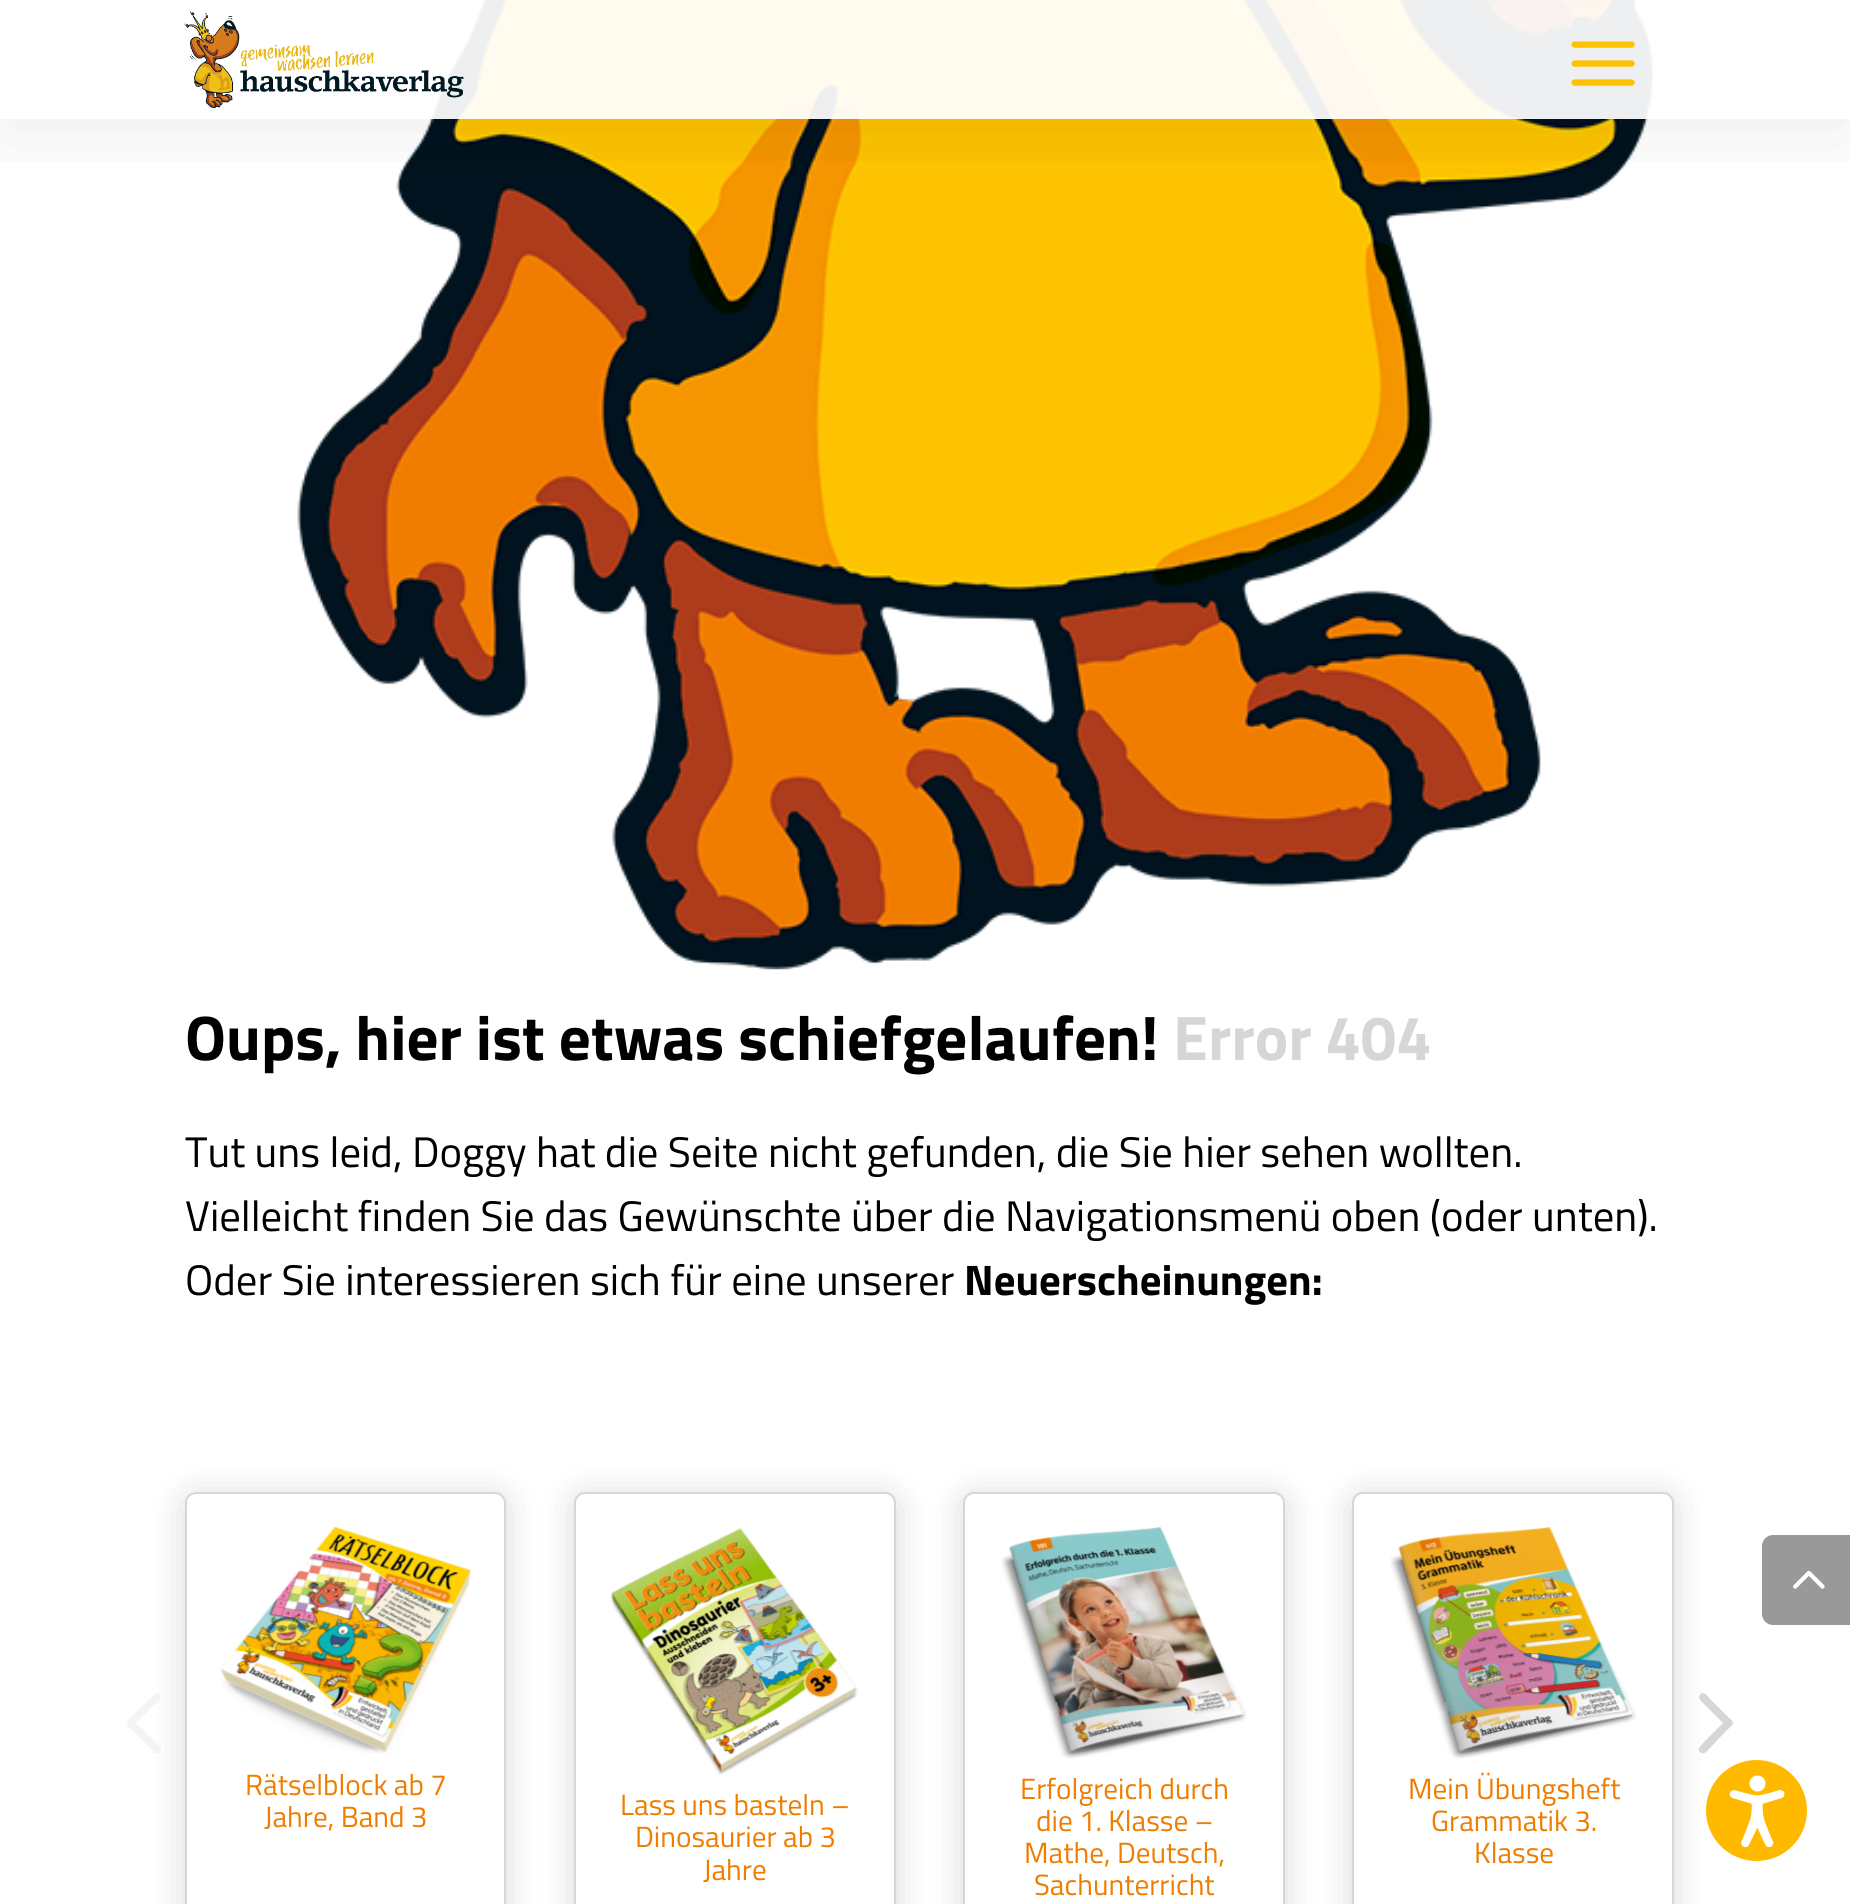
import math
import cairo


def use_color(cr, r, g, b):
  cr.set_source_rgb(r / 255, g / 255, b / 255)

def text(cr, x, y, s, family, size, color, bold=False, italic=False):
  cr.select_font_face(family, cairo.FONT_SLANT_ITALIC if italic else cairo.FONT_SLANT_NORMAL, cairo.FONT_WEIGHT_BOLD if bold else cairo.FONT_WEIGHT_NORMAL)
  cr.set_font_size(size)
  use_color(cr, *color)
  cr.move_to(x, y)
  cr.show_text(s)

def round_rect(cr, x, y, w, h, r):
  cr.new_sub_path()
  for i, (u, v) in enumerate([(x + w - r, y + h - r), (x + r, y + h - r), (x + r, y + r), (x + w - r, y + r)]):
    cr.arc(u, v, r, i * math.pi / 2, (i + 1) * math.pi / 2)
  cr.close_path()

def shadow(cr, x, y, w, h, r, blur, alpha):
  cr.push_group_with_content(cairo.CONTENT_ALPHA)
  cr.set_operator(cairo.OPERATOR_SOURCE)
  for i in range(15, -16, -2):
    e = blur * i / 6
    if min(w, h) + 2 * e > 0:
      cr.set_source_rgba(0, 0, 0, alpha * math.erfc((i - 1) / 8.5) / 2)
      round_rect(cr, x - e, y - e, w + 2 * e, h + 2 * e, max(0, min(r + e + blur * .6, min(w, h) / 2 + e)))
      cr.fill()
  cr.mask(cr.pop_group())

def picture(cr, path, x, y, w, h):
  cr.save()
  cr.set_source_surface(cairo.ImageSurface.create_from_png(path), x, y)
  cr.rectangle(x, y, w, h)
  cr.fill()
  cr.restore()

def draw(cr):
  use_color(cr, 255, 255, 255)
  cr.paint()
  picture(cr, "img_03.png", 297, 0, 1358, 970)
  cr.save()
  cr.rectangle(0, 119, 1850, 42)
  cr.clip()
  use_color(cr, 0, 0, 0)
  shadow(cr, 0, 5, 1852, 119, 0, 56, 0.08)
  cr.restore()
  cr.set_source_rgba(1, 1, 1, 0.93)
  cr.rectangle(430, 0, 1225, 119)
  cr.fill()
  picture(cr, "img_01.png", 184, 11, 280, 97)
  picture(cr, "img_02.png", 1571, 41, 64, 45)
  cr.save()
  cr.set_fill_rule(cairo.FILL_RULE_EVEN_ODD)
  cr.new_path()
  cr.move_to(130, 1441)
  cr.line_to(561, 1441)
  cr.line_to(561, 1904)
  cr.line_to(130, 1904)
  cr.close_path()
  cr.move_to(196, 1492)
  cr.line_to(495, 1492)
  cr.curve_to(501, 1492, 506, 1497, 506, 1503)
  cr.line_to(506, 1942)
  cr.curve_to(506, 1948, 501, 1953, 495, 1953)
  cr.line_to(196, 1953)
  cr.curve_to(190, 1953, 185, 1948, 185, 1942)
  cr.line_to(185, 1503)
  cr.curve_to(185, 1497, 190, 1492, 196, 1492)
  cr.close_path()
  cr.clip()
  use_color(cr, 0, 0, 0)
  shadow(cr, 185, 1496, 321, 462, 11, 18, 0.15)
  cr.restore()
  cr.set_source_rgba(0.839, 0.839, 0.839, 0.25)
  cr.new_path()
  cr.move_to(128, 1726)
  cr.line_to(150, 1748)
  cr.curve_to(152, 1749, 155, 1755, 159, 1753)
  cr.curve_to(160, 1752, 161, 1751, 161, 1750)
  cr.curve_to(161, 1746, 154, 1741, 152, 1739)
  cr.line_to(136, 1723)
  cr.line_to(160, 1699)
  cr.curve_to(162, 1697, 161, 1695, 159, 1694)
  cr.curve_to(155, 1691, 152, 1697, 150, 1699)
  cr.line_to(132, 1716)
  cr.curve_to(130, 1718, 124, 1722, 128, 1726)
  cr.close_path()
  cr.fill()
  use_color(cr, 0, 0, 0)
  shadow(cr, 1352, 1496, 322, 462, 11, 18, 0.15)
  use_color(cr, 214, 214, 214)
  cr.new_path()
  cr.move_to(1700, 1752)
  cr.curve_to(1704, 1756, 1708, 1750, 1710, 1748)
  cr.line_to(1727, 1730)
  cr.curve_to(1735, 1723, 1735, 1723, 1727, 1716)
  cr.line_to(1710, 1699)
  cr.curve_to(1708, 1696, 1703, 1690, 1700, 1695)
  cr.curve_to(1697, 1698, 1702, 1702, 1704, 1704)
  cr.line_to(1723, 1723)
  cr.line_to(1704, 1742)
  cr.curve_to(1702, 1745, 1696, 1749, 1700, 1752)
  cr.close_path()
  cr.fill()
  round_rect(cr, 186, 1493, 319, 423, 10)
  cr.stroke()
  picture(cr, "img_04.png", 221, 1527, 250, 227)
  use_color(cr, 0, 0, 0)
  shadow(cr, 574, 1496, 322, 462, 11, 18, 0.15)
  use_color(cr, 255, 255, 255)
  round_rect(cr, 575, 1493, 320, 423, 10)
  cr.fill_preserve()
  use_color(cr, 214, 214, 214)
  cr.stroke()
  picture(cr, "img_05.png", 610, 1528, 248, 247)
  use_color(cr, 0, 0, 0)
  shadow(cr, 963, 1496, 322, 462, 11, 18, 0.15)
  use_color(cr, 255, 255, 255)
  round_rect(cr, 964, 1493, 320, 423, 10)
  cr.fill_preserve()
  use_color(cr, 214, 214, 214)
  cr.stroke()
  picture(cr, "img_06.png", 1001, 1527, 246, 232)
  use_color(cr, 255, 255, 255)
  round_rect(cr, 1353, 1493, 320, 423, 10)
  cr.fill_preserve()
  use_color(cr, 214, 214, 214)
  cr.stroke()
  picture(cr, "img_07.png", 1390, 1527, 247, 232)
  use_color(cr, 153, 153, 153)
  cr.new_path()
  cr.move_to(1773, 1535)
  cr.line_to(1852, 1535)
  cr.line_to(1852, 1625)
  cr.line_to(1773, 1625)
  cr.curve_to(1767, 1625, 1762, 1620, 1762, 1614)
  cr.line_to(1762, 1546)
  cr.curve_to(1762, 1540, 1767, 1535, 1773, 1535)
  cr.close_path()
  cr.fill()
  picture(cr, "img_08.png", 1793, 1570, 32, 19)
  use_color(cr, 255, 186, 0)
  cr.arc(1756.5, 1810.5, 50.5, 0, 2 * math.pi)
  cr.fill()
  picture(cr, "img_09.png", 1729, 1775, 56, 72)
  text(cr, 185, 1060, "Oups, hier ist etwas schiefgelaufen!", "Titillium Web", 63, (0, 0, 0), bold=True)
  text(cr, 1173, 1060, "Error 404", "Titillium Web", 63, (214, 214, 214), bold=True)
  text(cr, 185, 1167, "Tut uns leid, Doggy hat die Seite nicht gefunden, die Sie hier sehen wollten.", "Titillium Web", 42.75, (0, 0, 0))
  text(cr, 185, 1231, "Vielleicht finden Sie das Gewünschte über die Navigationsmenü oben (oder unten).", "Titillium Web", 42.75, (0, 0, 0))
  text(cr, 185, 1295, "Oder Sie interessieren sich für eine unserer", "Titillium Web", 42.75, (0, 0, 0))
  text(cr, 964, 1295, "Neuerscheinungen:", "Titillium Web", 42.75, (0, 0, 0), bold=True)
  text(cr, 245, 1795, "Rätselblock ab 7", "Titillium Web", 29.25, (239, 125, 0))
  text(cr, 264, 1827, "Jahre, Band 3", "Titillium Web", 29.25, (239, 125, 0))
  text(cr, 620, 1815, "Lass uns basteln –", "Titillium Web", 29.25, (239, 125, 0))
  text(cr, 635, 1847, "Dinosaurier ab 3", "Titillium Web", 29.25, (239, 125, 0))
  text(cr, 703, 1880, "Jahre", "Titillium Web", 29.25, (239, 125, 0))
  text(cr, 1020, 1799, "Erfolgreich durch", "Titillium Web", 29.25, (239, 125, 0))
  text(cr, 1036, 1831, "die 1. Klasse –", "Titillium Web", 29.25, (239, 125, 0))
  text(cr, 1024, 1863, "Mathe, Deutsch,", "Titillium Web", 29.25, (239, 125, 0))
  text(cr, 1034, 1895, "Sachunterricht", "Titillium Web", 29.25, (239, 125, 0))
  text(cr, 1408, 1799, "Mein Übungsheft", "Titillium Web", 29.25, (239, 125, 0))
  text(cr, 1431, 1831, "Grammatik 3.", "Titillium Web", 29.25, (239, 125, 0))
  text(cr, 1474, 1863, "Klasse", "Titillium Web", 29.25, (239, 125, 0))


surface = cairo.ImageSurface(cairo.FORMAT_RGB24, 1850, 1904)
cr = cairo.Context(surface)
options = cairo.FontOptions()
options.set_hint_metrics(cairo.HINT_METRICS_OFF)
options.set_hint_style(cairo.HINT_STYLE_NONE)
cr.set_font_options(options)
cr.set_miter_limit(4)
draw(cr)
surface.write_to_png("out.png")
